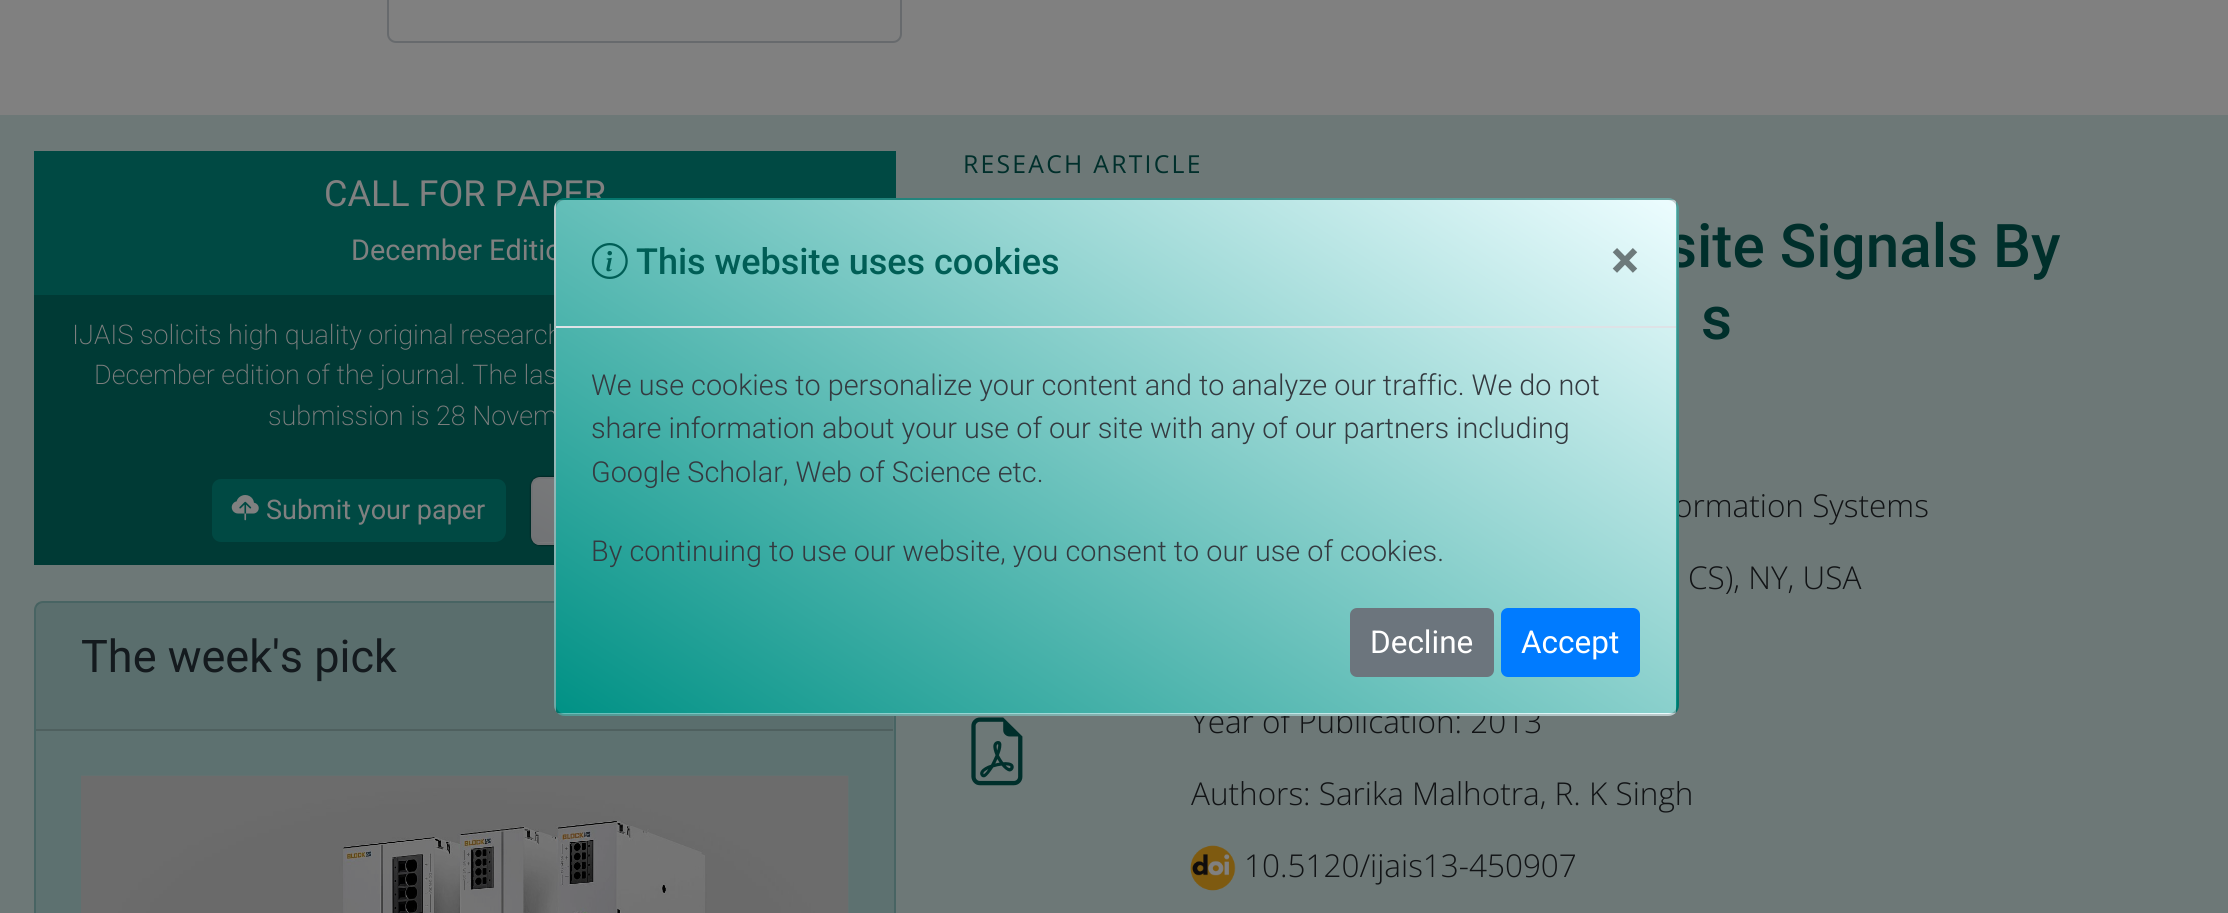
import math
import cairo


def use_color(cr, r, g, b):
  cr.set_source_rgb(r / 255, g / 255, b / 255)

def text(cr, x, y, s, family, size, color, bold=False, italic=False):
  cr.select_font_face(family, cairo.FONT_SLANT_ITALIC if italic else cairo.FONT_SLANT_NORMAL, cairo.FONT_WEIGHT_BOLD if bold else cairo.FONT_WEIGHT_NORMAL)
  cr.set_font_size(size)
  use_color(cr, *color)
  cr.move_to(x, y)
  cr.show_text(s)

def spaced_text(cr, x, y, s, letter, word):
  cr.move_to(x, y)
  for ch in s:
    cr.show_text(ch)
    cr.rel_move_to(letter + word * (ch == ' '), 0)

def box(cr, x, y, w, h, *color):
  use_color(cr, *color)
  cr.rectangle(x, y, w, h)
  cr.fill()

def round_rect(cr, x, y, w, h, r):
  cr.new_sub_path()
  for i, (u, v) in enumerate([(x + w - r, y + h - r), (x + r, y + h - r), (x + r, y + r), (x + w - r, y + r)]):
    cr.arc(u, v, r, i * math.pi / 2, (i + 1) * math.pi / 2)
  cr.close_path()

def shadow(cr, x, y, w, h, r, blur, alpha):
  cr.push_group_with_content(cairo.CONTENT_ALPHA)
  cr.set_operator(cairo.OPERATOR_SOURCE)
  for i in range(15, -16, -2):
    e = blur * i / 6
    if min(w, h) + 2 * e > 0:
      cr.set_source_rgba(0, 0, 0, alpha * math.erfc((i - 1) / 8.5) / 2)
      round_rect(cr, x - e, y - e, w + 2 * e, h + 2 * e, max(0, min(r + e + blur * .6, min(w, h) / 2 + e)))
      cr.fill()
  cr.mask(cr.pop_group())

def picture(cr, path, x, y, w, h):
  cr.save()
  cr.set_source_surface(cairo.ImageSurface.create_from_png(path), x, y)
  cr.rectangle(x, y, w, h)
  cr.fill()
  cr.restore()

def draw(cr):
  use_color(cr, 128, 128, 128)
  cr.paint()
  round_rect(cr, 388, -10, 513, 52, 8)
  use_color(cr, 103, 106, 109)
  cr.stroke()
  box(cr, 0, 115, 2228, 798, 109, 120, 119)
  box(cr, 34, 151, 862, 144, 0, 73, 67)
  box(cr, 36, 297, 518, 266, 0, 58, 53)
  cr.rectangle(35, 296, 860, 268)
  cr.stroke()
  use_color(cr, 0, 73, 67)
  cr.new_path()
  cr.move_to(221, 479)
  cr.line_to(497, 479)
  cr.curve_to(502, 479, 506, 483, 506, 488)
  cr.line_to(506, 531)
  cr.curve_to(506, 537, 501, 542, 495, 542)
  cr.line_to(221, 542)
  cr.curve_to(216, 542, 212, 538, 212, 533)
  cr.line_to(212, 488)
  cr.curve_to(212, 483, 216, 479, 221, 479)
  cr.close_path()
  cr.fill()
  picture(cr, "img_01.png", 231, 495, 28, 26)
  use_color(cr, 0, 0, 0)
  shadow(cr, 531, 477, 187, 68, 9, 1, 0.75)
  cr.save()
  round_rect(cr, 531, 477, 187, 68, 9)
  cr.clip()
  gradient = cairo.LinearGradient(591, 573, 658, 448)
  gradient.add_color_stop_rgba(0, 0.443, 0.451, 0.459, 1)
  gradient.add_color_stop_rgba(1, 0.502, 0.502, 0.502, 1)
  cr.set_source(gradient)
  cr.rectangle(533, 479, 21, 63)
  cr.fill()
  gradient = cairo.LinearGradient(591, 636, 658, 511)
  gradient.add_color_stop_rgba(0, 0.443, 0.451, 0.459, 1)
  gradient.add_color_stop_rgba(1, 0.502, 0.502, 0.502, 1)
  cr.set_source(gradient)
  cr.rectangle(533, 542, 21, 3)
  cr.fill()
  cr.restore()
  round_rect(cr, 532, 478, 185, 66, 8)
  use_color(cr, 113, 115, 117)
  cr.stroke()
  use_color(cr, 93, 113, 112)
  round_rect(cr, 34, 601, 862, 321, 9)
  cr.fill()
  round_rect(cr, 35, 602, 860, 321, 8)
  cr.set_source_rgba(0, 0.227, 0.208, 0.23)
  cr.stroke()
  cr.set_source_rgba(0, 0, 0, 0.03)
  cr.rectangle(36, 603, 857, 126)
  cr.fill()
  box(cr, 36, 729, 857, 2, 79, 96, 95)
  picture(cr, "img_02.png", 81, 775, 768, 138)
  picture(cr, "img_03.png", 971, 717, 52, 69)
  picture(cr, "img_04.png", 1190, 845, 46, 46)
  text(cr, 324, 206, "CALL FOR PAPER", "Roboto", 36, (128, 128, 128))
  text(cr, 351, 260, "December Editio", "Roboto", 28.8, (128, 128, 128))
  text(cr, 72, 344, "IJAIS solicits high quality original research", "Roboto ExtraLight", 27, (128, 128, 128))
  text(cr, 94, 384, "December edition of the journal. The las", "Roboto ExtraLight", 27, (128, 128, 128))
  text(cr, 268, 425, "submission is 28 Novem", "Roboto ExtraLight", 27, (128, 128, 128))
  text(cr, 266, 519, "Submit your paper", "Roboto", 27, (128, 128, 128))
  text(cr, 81, 672, "The week's pick", "Roboto", 45, (20, 26, 30))
  cr.select_font_face("Open Sans")
  cr.set_font_size(24.75)
  use_color(cr, 0, 47, 43)
  spaced_text(cr, 963, 173, "RESEACH ARTICLE", 2.25, 0)
  text(cr, 1666, 267, "site Signals By", "Roboto Medium", 60.25, (0, 47, 43))
  text(cr, 1701, 339, "s", "Roboto Medium", 60.25, (0, 47, 43))
  text(cr, 1674, 517, "ormation Systems", "Open Sans Light", 31.5, (17, 19, 21))
  text(cr, 1688, 589, "CS), NY, USA", "Open Sans Light", 31.5, (17, 19, 21))
  text(cr, 1191, 733, "Year of Publication: 2013", "Open Sans Light", 31.5, (17, 19, 21))
  text(cr, 1191, 805, "Authors: Sarika Malhotra, R. K Singh", "Open Sans Light", 31.5, (17, 19, 21))
  text(cr, 1244, 877, "10.5120/ijais13-450907", "Open Sans Light", 31.5, (17, 19, 21))
  cr.save()
  round_rect(cr, 554, 198, 1125, 518, 11)
  cr.clip()
  gradient = cairo.LinearGradient(838, 380, 1394, -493)
  gradient.add_color_stop_rgba(0, 0, 0.569, 0.522, 1)
  gradient.add_color_stop_rgba(1, 0.929, 0.992, 1, 1)
  cr.set_source(gradient)
  cr.rectangle(556, 198, 1120, 2)
  cr.fill()
  gradient = cairo.LinearGradient(-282, 893, 273, 20)
  gradient.add_color_stop_rgba(0, 0, 0.569, 0.522, 1)
  gradient.add_color_stop_rgba(1, 0.929, 0.992, 1, 1)
  cr.set_source(gradient)
  cr.rectangle(554, 200, 2, 513)
  cr.fill()
  gradient = cairo.LinearGradient(838, 893, 1394, 20)
  gradient.add_color_stop_rgba(0, 0, 0.569, 0.522, 1)
  gradient.add_color_stop_rgba(1, 0.929, 0.992, 1, 1)
  cr.set_source(gradient)
  cr.rectangle(556, 200, 1120, 513)
  cr.fill()
  gradient = cairo.LinearGradient(1959, 893, 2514, 20)
  gradient.add_color_stop_rgba(0, 0, 0.569, 0.522, 1)
  gradient.add_color_stop_rgba(1, 0.929, 0.992, 1, 1)
  cr.set_source(gradient)
  cr.rectangle(1676, 200, 3, 513)
  cr.fill()
  gradient = cairo.LinearGradient(838, 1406, 1394, 533)
  gradient.add_color_stop_rgba(0, 0, 0.569, 0.522, 1)
  gradient.add_color_stop_rgba(1, 0.929, 0.992, 1, 1)
  cr.set_source(gradient)
  cr.rectangle(556, 713, 1120, 3)
  cr.fill()
  cr.restore()
  round_rect(cr, 555, 199, 1123, 516, 10)
  cr.set_source_rgba(0, 0, 0, 0.2)
  cr.stroke()
  box(cr, 556, 326, 1120, 2, 222, 226, 230)
  picture(cr, "img_05.png", 591, 243, 37, 36)
  text(cr, 636, 274, "This website uses cookies", "Roboto Medium", 36, (0, 94, 86))
  text(cr, 1611, 278, "×", "Roboto", 53, (109, 122, 123), bold=True)
  text(cr, 591, 395, "We use cookies to personalize your content and to analyze our traffic. We do not", "Roboto Light", 28.8, (52, 58, 64))
  text(cr, 591, 438, "share information about your use of our site with any of our partners including", "Roboto Light", 28.8, (52, 58, 64))
  text(cr, 591, 482, "Google Scholar, Web of Science etc.", "Roboto Light", 28.8, (52, 58, 64))
  text(cr, 591, 561, "By continuing to use our website, you consent to our use of cookies.", "Roboto Light", 28.8, (52, 58, 64))
  use_color(cr, 108, 117, 125)
  round_rect(cr, 1351, 609, 142, 67, 6)
  cr.fill_preserve()
  cr.stroke()
  text(cr, 1370, 653, "Decline", "Roboto", 31.5, (255, 255, 255))
  use_color(cr, 0, 123, 255)
  round_rect(cr, 1502, 609, 137, 67, 6)
  cr.fill_preserve()
  cr.stroke()
  text(cr, 1521, 653, "Accept", "Roboto", 31.5, (255, 255, 255))


surface = cairo.ImageSurface(cairo.FORMAT_RGB24, 2228, 913)
cr = cairo.Context(surface)
options = cairo.FontOptions()
options.set_hint_metrics(cairo.HINT_METRICS_OFF)
options.set_hint_style(cairo.HINT_STYLE_NONE)
cr.set_font_options(options)
cr.set_miter_limit(4)
draw(cr)
surface.write_to_png("out.png")
